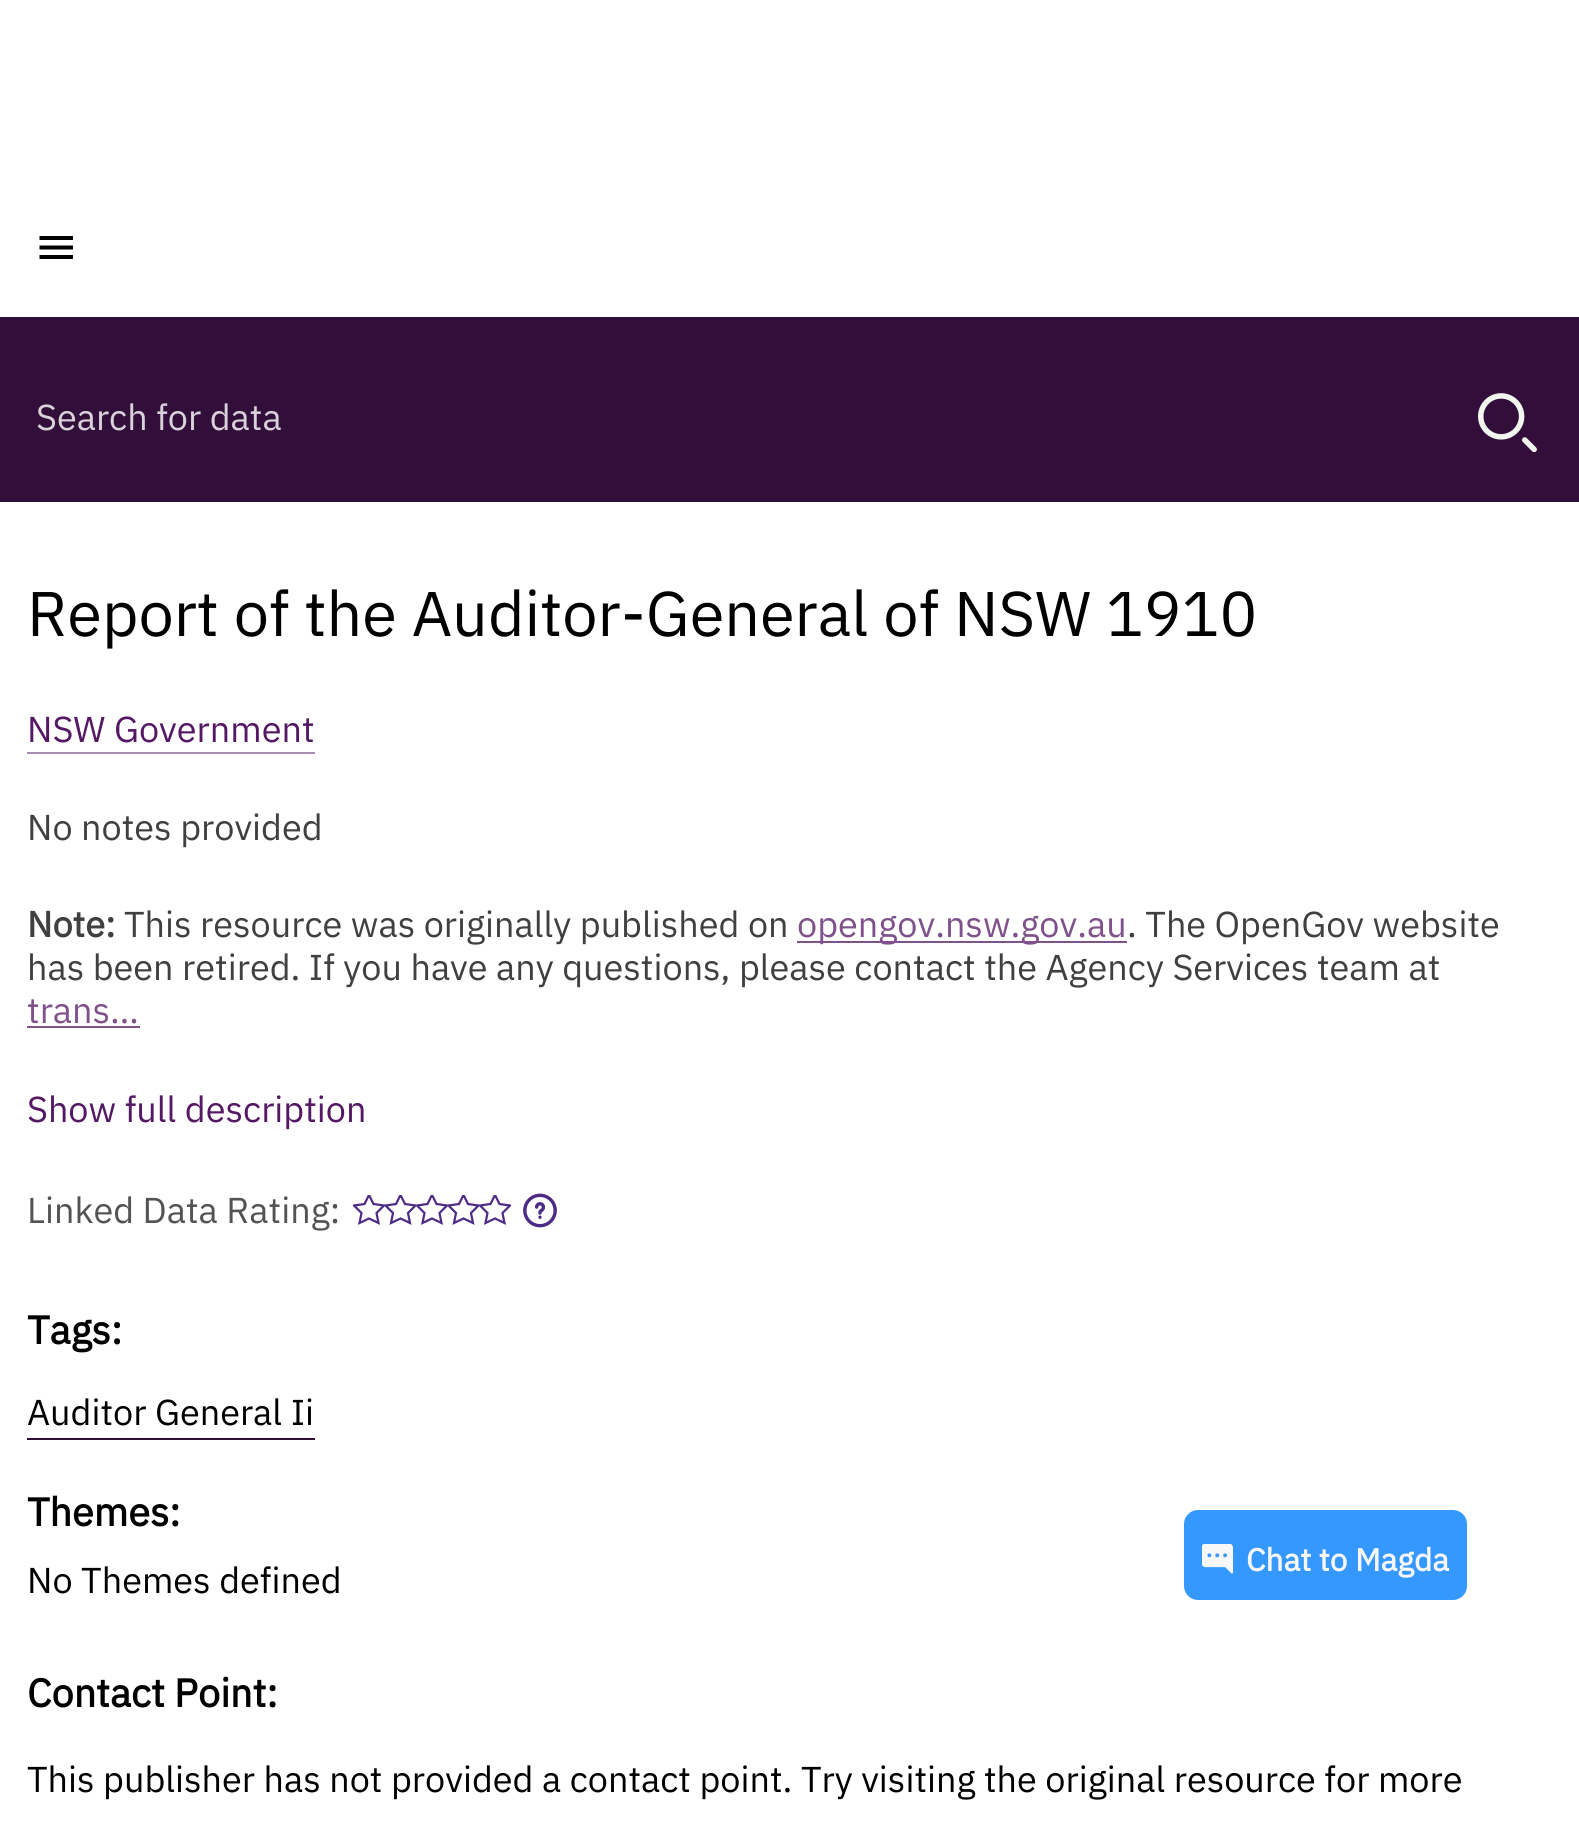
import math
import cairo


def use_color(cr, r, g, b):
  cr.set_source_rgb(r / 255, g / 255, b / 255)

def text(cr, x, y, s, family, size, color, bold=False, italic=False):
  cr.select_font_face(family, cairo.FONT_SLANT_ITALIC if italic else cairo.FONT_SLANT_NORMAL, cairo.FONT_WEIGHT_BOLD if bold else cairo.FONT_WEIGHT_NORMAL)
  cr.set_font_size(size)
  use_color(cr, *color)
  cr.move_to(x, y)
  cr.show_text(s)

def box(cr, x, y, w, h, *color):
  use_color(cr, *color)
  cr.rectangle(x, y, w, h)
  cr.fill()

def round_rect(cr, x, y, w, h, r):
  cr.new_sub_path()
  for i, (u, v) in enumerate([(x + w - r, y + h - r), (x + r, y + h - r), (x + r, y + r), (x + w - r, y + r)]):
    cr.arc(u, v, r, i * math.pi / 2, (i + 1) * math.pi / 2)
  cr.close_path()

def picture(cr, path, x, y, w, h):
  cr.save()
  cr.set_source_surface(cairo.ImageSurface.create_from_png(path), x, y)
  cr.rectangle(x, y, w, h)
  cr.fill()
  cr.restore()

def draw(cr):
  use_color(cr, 255, 255, 255)
  cr.paint()
  box(cr, 0, 317, 1579, 185, 50, 14, 59)
  use_color(cr, 0, 0, 0)
  cr.new_path()
  cr.move_to(39.5, 259)
  cr.line_to(73, 259)
  cr.line_to(73, 255)
  cr.line_to(39.5, 255)
  cr.close_path()
  cr.move_to(39.5, 249.5)
  cr.line_to(73, 249.5)
  cr.line_to(73, 245.5)
  cr.line_to(39.5, 245.5)
  cr.close_path()
  cr.move_to(39.5, 236)
  cr.line_to(39.5, 240)
  cr.line_to(73, 240)
  cr.line_to(73, 236)
  cr.close_path()
  cr.fill()
  picture(cr, "img_01.png", 1478, 393, 59, 59)
  box(cr, 27, 752, 288, 2, 170, 140, 178)
  box(cr, 797, 941, 330, 2, 128, 82, 139)
  box(cr, 27, 1026, 113, 2, 128, 82, 139)
  cr.save()
  cr.rectangle(353, 1195, 32, 31)
  cr.clip()
  cr.new_path()
  cr.move_to(369, 1218.5)
  cr.line_to(359.5, 1223)
  cr.line_to(361.5, 1213)
  cr.line_to(354, 1205.5)
  cr.line_to(364.5, 1204)
  cr.line_to(369, 1195)
  cr.line_to(373.5, 1204)
  cr.line_to(384, 1205.5)
  cr.line_to(376.5, 1213)
  cr.line_to(378.5, 1223)
  cr.close_path()
  use_color(cr, 76, 42, 133)
  cr.set_line_width(2.2)
  cr.stroke()
  cr.restore()
  cr.save()
  cr.rectangle(385, 1195, 31, 31)
  cr.clip()
  cr.new_path()
  cr.move_to(400.5, 1218.5)
  cr.line_to(391, 1223)
  cr.line_to(393, 1213)
  cr.line_to(385.5, 1205.5)
  cr.line_to(396, 1204)
  cr.line_to(400.5, 1195)
  cr.line_to(405, 1204)
  cr.line_to(415.5, 1205.5)
  cr.line_to(408, 1213)
  cr.line_to(410, 1223)
  cr.close_path()
  use_color(cr, 76, 42, 133)
  cr.set_line_width(2.2)
  cr.stroke()
  cr.restore()
  cr.save()
  cr.rectangle(416, 1195, 32, 31)
  cr.clip()
  cr.new_path()
  cr.move_to(432, 1218.5)
  cr.line_to(422.5, 1223)
  cr.line_to(424.5, 1213)
  cr.line_to(417, 1205.5)
  cr.line_to(427.5, 1204)
  cr.line_to(432, 1195)
  cr.line_to(436.5, 1204)
  cr.line_to(447, 1205.5)
  cr.line_to(439.5, 1213)
  cr.line_to(441.5, 1223)
  cr.close_path()
  use_color(cr, 76, 42, 133)
  cr.set_line_width(2.2)
  cr.stroke()
  cr.restore()
  cr.save()
  cr.rectangle(448, 1195, 31, 31)
  cr.clip()
  cr.new_path()
  cr.move_to(463.5, 1218.5)
  cr.line_to(454, 1223)
  cr.line_to(456, 1213)
  cr.line_to(448.5, 1205.5)
  cr.line_to(459, 1204)
  cr.line_to(463.5, 1195)
  cr.line_to(468, 1204)
  cr.line_to(478.5, 1205.5)
  cr.line_to(471, 1213)
  cr.line_to(473, 1223)
  cr.close_path()
  use_color(cr, 76, 42, 133)
  cr.set_line_width(2.2)
  cr.stroke()
  cr.restore()
  cr.save()
  cr.rectangle(479, 1195, 32, 31)
  cr.clip()
  cr.new_path()
  cr.move_to(495, 1218.5)
  cr.line_to(485.5, 1223)
  cr.line_to(487.5, 1213)
  cr.line_to(480, 1205.5)
  cr.line_to(490.5, 1204)
  cr.line_to(495, 1195)
  cr.line_to(499.5, 1204)
  cr.line_to(510, 1205.5)
  cr.line_to(502.5, 1213)
  cr.line_to(504.5, 1223)
  cr.close_path()
  use_color(cr, 76, 42, 133)
  cr.set_line_width(2.2)
  cr.stroke()
  cr.restore()
  picture(cr, "img_02.png", 523, 1193, 34, 35)
  box(cr, 27, 1438, 288, 2, 50, 14, 59)
  use_color(cr, 52, 152, 255)
  round_rect(cr, 1184, 1510, 283, 90, 14)
  cr.fill()
  picture(cr, "img_03.png", 1202, 1544, 31, 30)
  text(cr, 36, 430, "Search for data", "IBM Plex Sans", 36, (218, 210, 218))
  text(cr, 27, 636, "Report of the Auditor-General of NSW 1910", "IBM Plex Sans", 63, (0, 0, 0))
  text(cr, 27, 742, "NSW Government", "IBM Plex Sans", 36, (85, 24, 100))
  text(cr, 27, 840, "No notes provided", "IBM Plex Sans", 36, (64, 64, 64))
  text(cr, 27, 937, "Note:", "IBM Plex Sans", 36, (64, 64, 64), bold=True)
  text(cr, 124, 937, "This resource was originally published on", "IBM Plex Sans", 36, (64, 64, 64))
  text(cr, 797, 937, "opengov.nsw.gov.au", "IBM Plex Sans", 36, (128, 82, 139))
  text(cr, 1127, 937, ". The OpenGov website", "IBM Plex Sans", 36, (64, 64, 64))
  text(cr, 27, 980, "has been retired. If you have any questions, please contact the Agency Services team at", "IBM Plex Sans", 36, (64, 64, 64))
  text(cr, 27, 1023, "trans…", "IBM Plex Sans", 36, (128, 82, 139))
  text(cr, 27, 1122, "Show full description", "IBM Plex Sans", 36, (85, 24, 100))
  text(cr, 27, 1223, "Linked Data Rating:", "IBM Plex Sans", 36, (83, 83, 83))
  text(cr, 27, 1344, "Tags:", "IBM Plex Sans", 39.5, (0, 0, 0), bold=True)
  text(cr, 27, 1425, "Auditor General Ii", "IBM Plex Sans", 36, (0, 0, 0))
  text(cr, 27, 1526, "Themes:", "IBM Plex Sans", 39.5, (0, 0, 0), bold=True)
  text(cr, 27, 1593, "No Themes defined", "IBM Plex Sans", 36, (0, 0, 0))
  text(cr, 27, 1707, "Contact Point:", "IBM Plex Sans", 39.5, (0, 0, 0), bold=True)
  text(cr, 27, 1792, "This publisher has not provided a contact point. Try visiting the original resource for more", "IBM Plex Sans", 36, (0, 0, 0))
  text(cr, 1246, 1571, "Chat to Magda", "IBM Plex Sans", 31.5, (247, 247, 247), bold=True)


surface = cairo.ImageSurface(cairo.FORMAT_RGB24, 1579, 1824)
cr = cairo.Context(surface)
options = cairo.FontOptions()
options.set_hint_metrics(cairo.HINT_METRICS_OFF)
options.set_hint_style(cairo.HINT_STYLE_NONE)
cr.set_font_options(options)
cr.set_miter_limit(4)
draw(cr)
surface.write_to_png("out.png")
